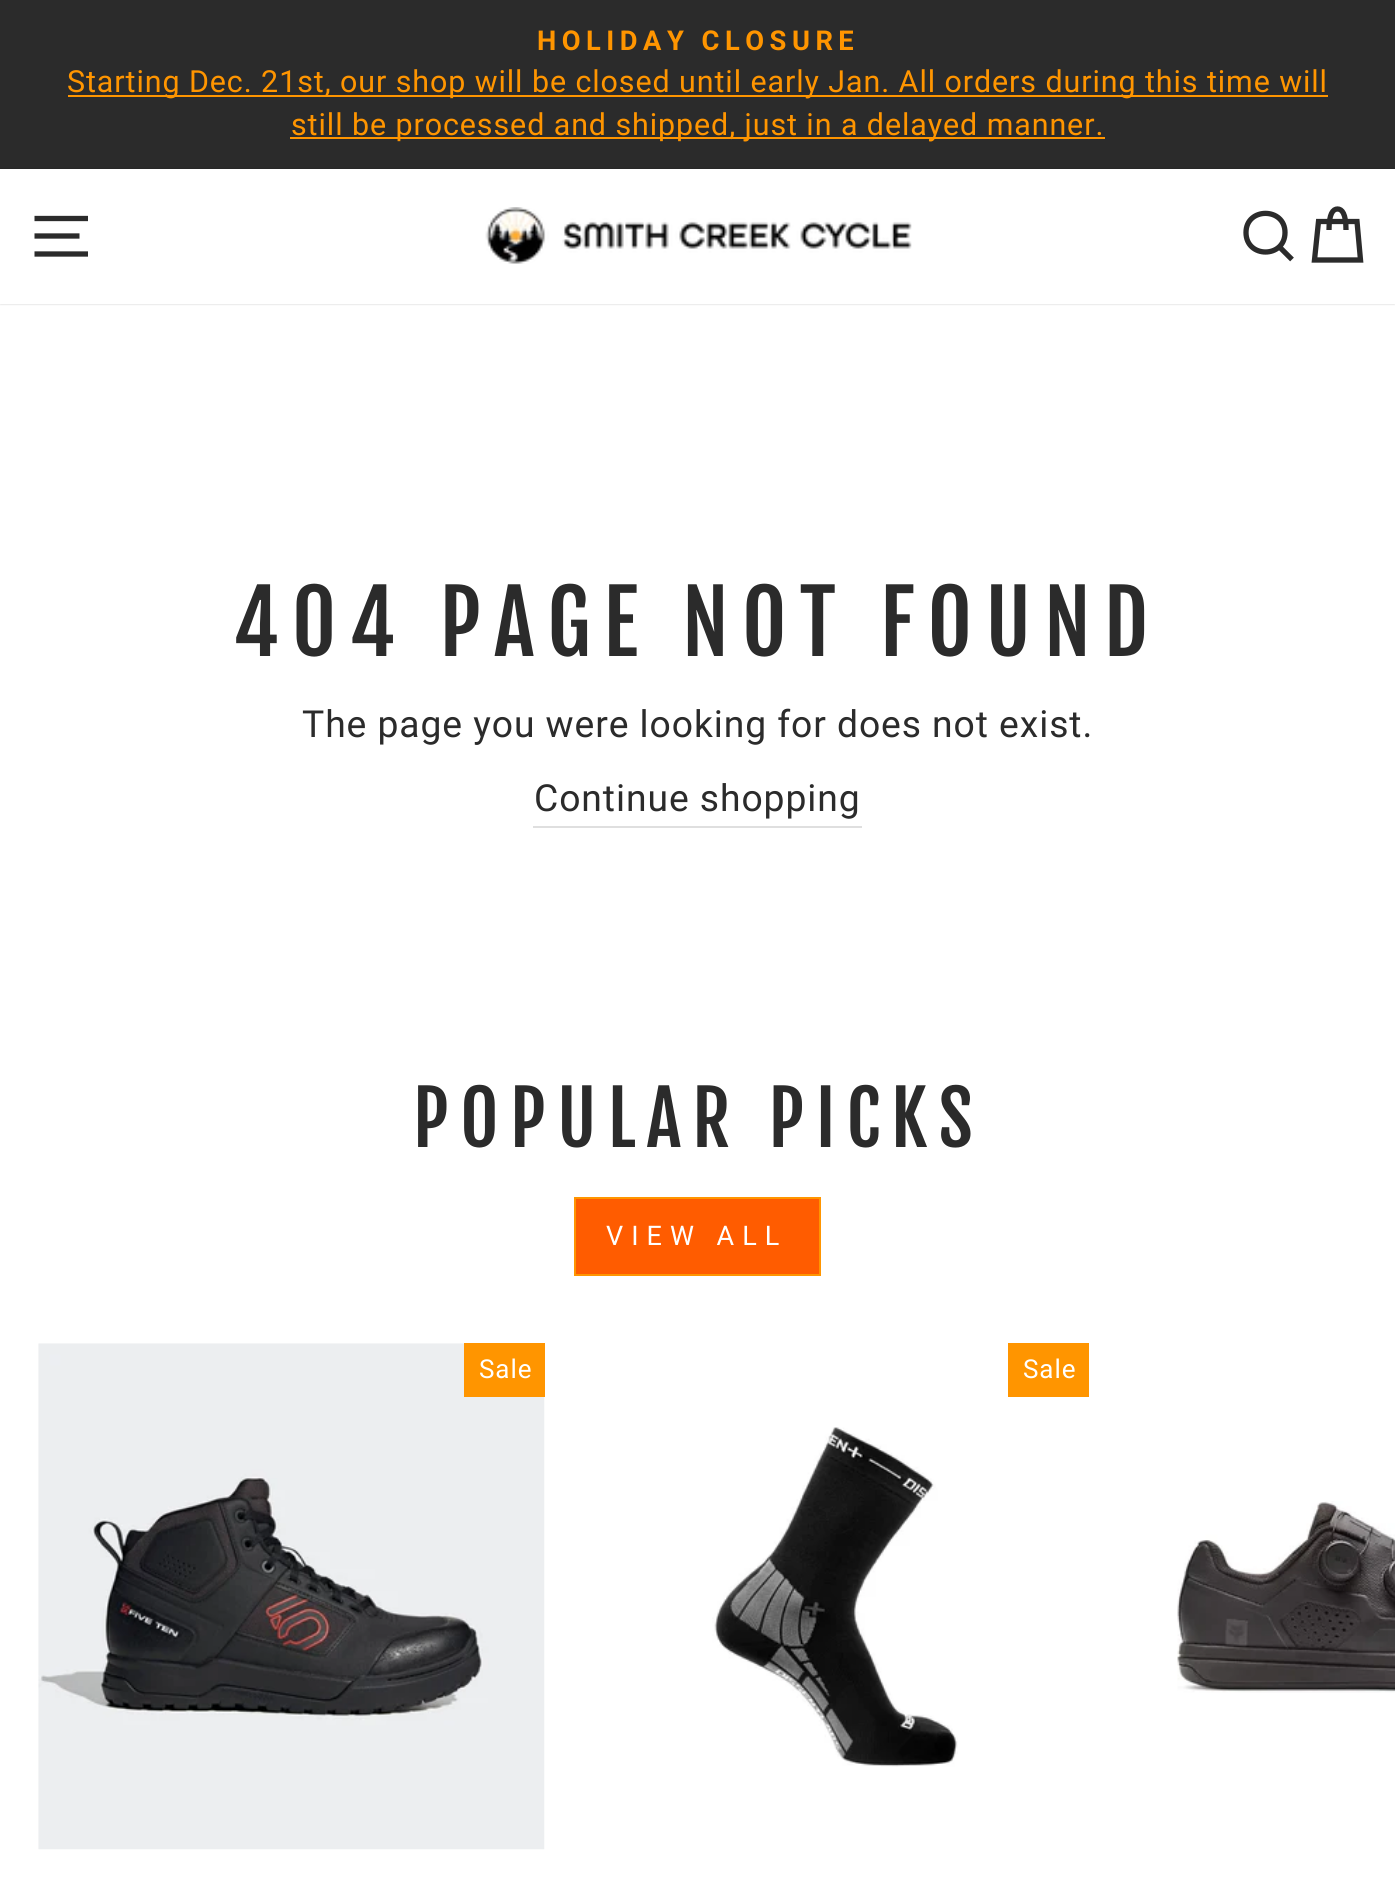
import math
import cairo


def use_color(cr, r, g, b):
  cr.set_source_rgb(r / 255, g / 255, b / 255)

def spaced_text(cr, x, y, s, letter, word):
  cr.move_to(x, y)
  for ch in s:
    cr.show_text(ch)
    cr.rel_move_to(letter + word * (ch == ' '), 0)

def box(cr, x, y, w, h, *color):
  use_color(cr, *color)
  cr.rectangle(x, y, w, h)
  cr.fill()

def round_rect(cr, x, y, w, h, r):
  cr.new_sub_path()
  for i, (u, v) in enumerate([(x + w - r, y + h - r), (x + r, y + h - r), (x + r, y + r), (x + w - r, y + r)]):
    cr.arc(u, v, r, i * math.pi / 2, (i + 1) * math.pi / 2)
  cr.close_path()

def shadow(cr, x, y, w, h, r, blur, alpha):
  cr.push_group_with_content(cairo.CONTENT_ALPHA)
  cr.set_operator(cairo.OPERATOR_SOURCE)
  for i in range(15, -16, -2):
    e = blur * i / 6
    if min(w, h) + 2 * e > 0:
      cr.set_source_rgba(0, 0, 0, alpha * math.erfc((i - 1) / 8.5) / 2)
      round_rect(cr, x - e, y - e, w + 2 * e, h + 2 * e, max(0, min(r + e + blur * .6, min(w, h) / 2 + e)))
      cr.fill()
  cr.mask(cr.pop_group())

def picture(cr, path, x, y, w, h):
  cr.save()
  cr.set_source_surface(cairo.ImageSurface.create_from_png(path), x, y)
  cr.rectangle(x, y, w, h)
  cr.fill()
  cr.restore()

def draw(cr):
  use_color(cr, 255, 255, 255)
  cr.paint()
  box(cr, 0, 0, 1395, 169, 43, 43, 43)
  box(cr, 68, 95, 1260, 2, 255, 149, 0)
  box(cr, 290, 137, 815, 2, 255, 149, 0)
  use_color(cr, 0, 0, 0)
  shadow(cr, 0, 169, 1395, 135, 0, 1, 0.2)
  box(cr, 0, 169, 1395, 135, 255, 255, 255)
  cr.new_path()
  cr.move_to(34.5, 218.5)
  cr.line_to(88, 218.5)
  cr.move_to(34.5, 236)
  cr.line_to(79.5, 236)
  cr.move_to(34.5, 254)
  cr.line_to(88, 254)
  use_color(cr, 43, 43, 43)
  cr.set_line_width(5.3)
  cr.stroke()
  picture(cr, "img_01.png", 485, 207, 427, 57)
  cr.new_path()
  cr.move_to(1285, 232.5)
  cr.curve_to(1285, 258.5, 1246, 258.5, 1246, 232.5)
  cr.curve_to(1246, 207, 1285, 207, 1285, 232.5)
  cr.close_path()
  cr.move_to(1292, 259.5)
  cr.line_to(1279.5, 247)
  cr.stroke()
  cr.new_path()
  cr.move_to(1329, 230)
  cr.curve_to(1329, 213.5, 1333, 209, 1337.5, 209)
  cr.curve_to(1342, 209, 1346, 213.5, 1346, 230)
  cr.move_to(1318.5, 221.5)
  cr.line_to(1357, 221.5)
  cr.line_to(1360.5, 260)
  cr.line_to(1314.5, 260)
  cr.close_path()
  cr.stroke()
  box(cr, 533, 826, 329, 2, 223, 223, 223)
  use_color(cr, 255, 92, 0)
  cr.rectangle(575, 1198, 245, 77)
  cr.fill_preserve()
  use_color(cr, 255, 149, 0)
  cr.set_line_width(2)
  cr.stroke()
  picture(cr, "img_02.png", 38, 1343, 507, 507)
  box(cr, 464, 1343, 81, 54, 255, 149, 0)
  box(cr, 1008, 1343, 81, 54, 255, 149, 0)
  picture(cr, "img_03.png", 712, 1427, 246, 340)
  picture(cr, "img_04.png", 1177, 1501, 218, 192)
  cr.select_font_face("Roboto", cairo.FONT_SLANT_NORMAL, cairo.FONT_WEIGHT_BOLD)
  cr.set_font_size(27.3)
  spaced_text(cr, 537, 50, "HOLIDAY CLOSURE", 5.5, 0)
  cr.select_font_face("Roboto")
  cr.set_font_size(30.4)
  spaced_text(cr, 67, 92, "Starting Dec. 21st, our shop will be closed until early Jan. All orders during this time will", 0.93, 0)
  spaced_text(cr, 291, 135, "still be processed and shipped, just in a delayed manner.", 0.93, 0)
  cr.select_font_face("Fjalla One")
  cr.set_font_size(86)
  use_color(cr, 43, 43, 43)
  spaced_text(cr, 233, 656, "404 PAGE NOT FOUND", 12.9, 0)
  cr.select_font_face("Roboto")
  cr.set_font_size(37.25)
  spaced_text(cr, 302, 737, "The page you were looking for does not exist.", 0.93, 0)
  spaced_text(cr, 534, 811, "Continue shopping", 0.93, 0)
  cr.select_font_face("Fjalla One")
  cr.set_font_size(74)
  spaced_text(cr, 413, 1147, "POPULAR PICKS", 11.1, 0)
  cr.select_font_face("Roboto")
  cr.set_font_size(27)
  use_color(cr, 255, 255, 255)
  spaced_text(cr, 606, 1245, "VIEW ALL", 8, 0)
  cr.set_font_size(26)
  spaced_text(cr, 479, 1378, "Sale", 0.93, 0)
  spaced_text(cr, 1023, 1378, "Sale", 0.93, 0)


surface = cairo.ImageSurface(cairo.FORMAT_RGB24, 1395, 1883)
cr = cairo.Context(surface)
options = cairo.FontOptions()
options.set_hint_metrics(cairo.HINT_METRICS_OFF)
options.set_hint_style(cairo.HINT_STYLE_NONE)
cr.set_font_options(options)
cr.set_miter_limit(4)
draw(cr)
surface.write_to_png("out.png")
